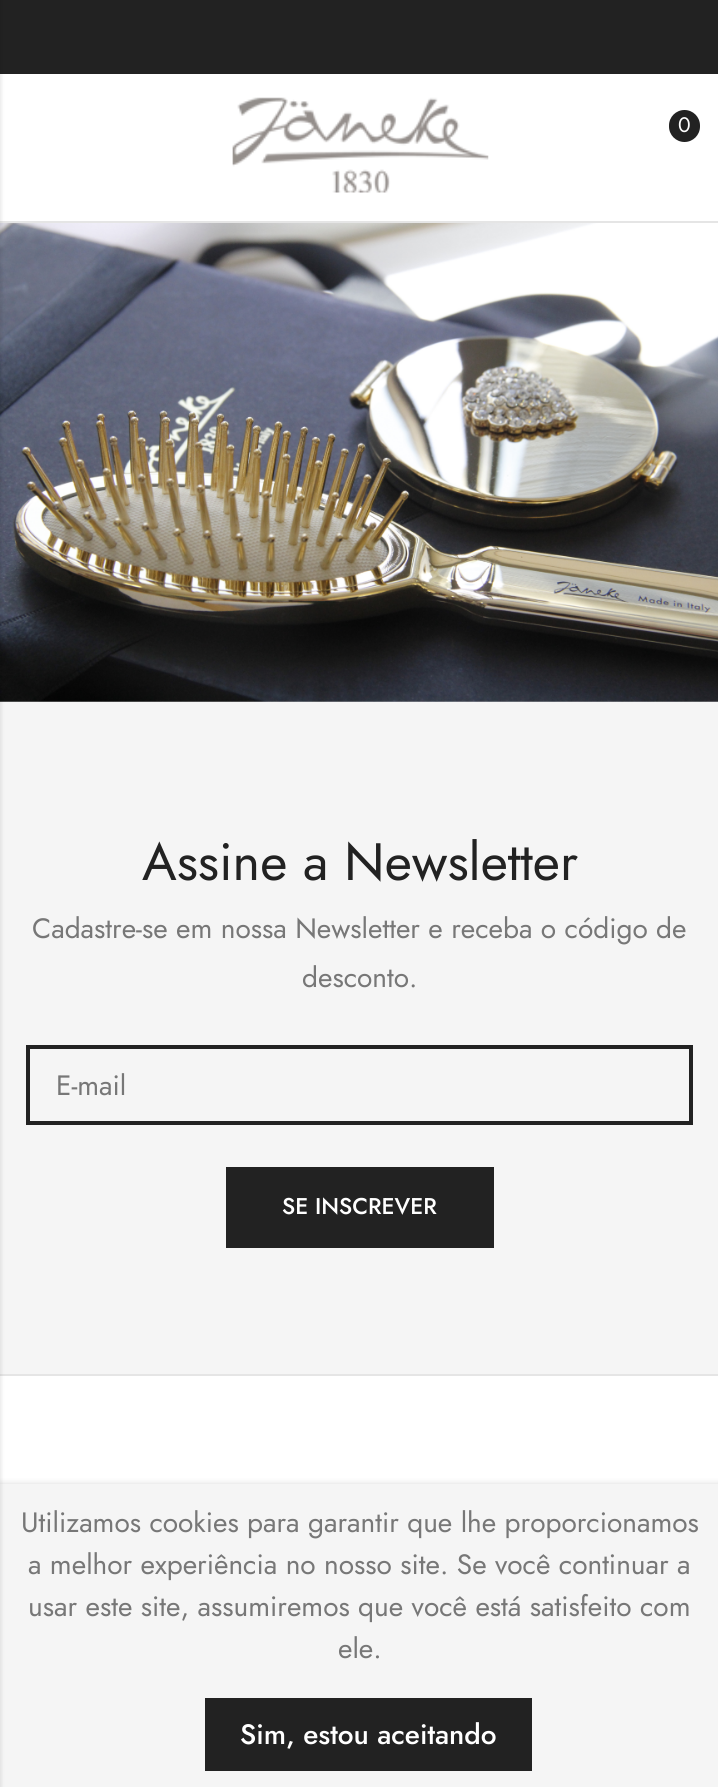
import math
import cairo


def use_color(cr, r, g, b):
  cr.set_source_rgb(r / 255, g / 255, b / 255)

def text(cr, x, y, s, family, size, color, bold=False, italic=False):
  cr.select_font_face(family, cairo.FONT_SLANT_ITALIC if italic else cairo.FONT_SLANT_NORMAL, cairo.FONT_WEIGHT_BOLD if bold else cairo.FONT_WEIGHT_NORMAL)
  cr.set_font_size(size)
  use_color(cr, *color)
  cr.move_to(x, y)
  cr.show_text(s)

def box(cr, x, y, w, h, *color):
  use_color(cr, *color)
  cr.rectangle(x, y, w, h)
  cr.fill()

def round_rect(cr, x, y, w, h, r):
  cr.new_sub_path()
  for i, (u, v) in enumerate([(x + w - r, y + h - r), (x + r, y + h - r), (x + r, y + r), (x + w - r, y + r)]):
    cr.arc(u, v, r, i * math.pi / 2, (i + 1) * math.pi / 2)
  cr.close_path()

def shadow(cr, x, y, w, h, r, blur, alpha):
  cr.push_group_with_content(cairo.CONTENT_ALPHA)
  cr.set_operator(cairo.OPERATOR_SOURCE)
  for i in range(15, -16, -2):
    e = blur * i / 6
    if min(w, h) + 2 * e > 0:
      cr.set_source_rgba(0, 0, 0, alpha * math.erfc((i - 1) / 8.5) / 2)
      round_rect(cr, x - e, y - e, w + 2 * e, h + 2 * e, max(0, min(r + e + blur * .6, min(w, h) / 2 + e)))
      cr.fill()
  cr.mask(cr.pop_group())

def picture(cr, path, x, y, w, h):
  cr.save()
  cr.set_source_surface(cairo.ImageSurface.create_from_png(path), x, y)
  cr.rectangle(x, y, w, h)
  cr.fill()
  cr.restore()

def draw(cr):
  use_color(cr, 255, 255, 255)
  cr.paint()
  box(cr, 0, 0, 718, 74, 34, 34, 34)
  box(cr, 0, 221, 718, 2, 229, 229, 229)
  picture(cr, "img_02.png", 0, 223, 718, 479)
  box(cr, 0, 702, 718, 672, 245, 245, 245)
  box(cr, 0, 1374, 718, 2, 229, 229, 229)
  use_color(cr, 0, 0, 0)
  shadow(cr, 0, 1484, 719, 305, 0, 3.5, 0.15)
  box(cr, 0, 1484, 718, 303, 245, 245, 245)
  use_color(cr, 0, 0, 0)
  shadow(cr, -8, 0, 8, 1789, 0, 2.5, 0.15)
  picture(cr, "img_01.png", 232, 97, 257, 96)
  use_color(cr, 34, 34, 34)
  round_rect(cr, 669, 110, 31, 32, 15.5)
  cr.fill()
  cr.rectangle(28, 1047, 663, 76)
  cr.set_line_width(4)
  cr.stroke()
  box(cr, 226, 1167, 268, 81, 34, 34, 34)
  box(cr, 205, 1698, 327, 73, 34, 34, 34)
  text(cr, 678, 132, "0", "Jost", 21, (255, 255, 255))
  text(cr, 142, 880, "Assine a Newsletter", "Jost", 52.5, (34, 34, 34))
  text(cr, 32, 938, "Cadastre-se em nossa Newsletter e receba o código de", "Jost", 28, (119, 119, 119))
  text(cr, 302, 987, "desconto.", "Jost", 28, (119, 119, 119))
  text(cr, 56, 1095, "E-mail", "Jost", 28, (119, 119, 119))
  text(cr, 282, 1214, "SE INSCREVER", "Jost Medium", 22.75, (255, 255, 255))
  text(cr, 21, 1532, "Utilizamos cookies para garantir que lhe proporcionamos", "Jost", 28, (119, 119, 119))
  text(cr, 28, 1574, "a melhor experiência no nosso site. Se você continuar a", "Jost", 28, (119, 119, 119))
  text(cr, 28, 1616, "usar este site, assumiremos que você está satisfeito com", "Jost", 28, (119, 119, 119))
  text(cr, 338, 1658, "ele.", "Jost", 28, (119, 119, 119))
  text(cr, 240, 1744, "Sim, estou aceitando", "Jost Medium", 28, (255, 255, 255))


surface = cairo.ImageSurface(cairo.FORMAT_RGB24, 718, 1787)
cr = cairo.Context(surface)
options = cairo.FontOptions()
options.set_hint_metrics(cairo.HINT_METRICS_OFF)
options.set_hint_style(cairo.HINT_STYLE_NONE)
cr.set_font_options(options)
cr.set_miter_limit(4)
draw(cr)
surface.write_to_png("out.png")
